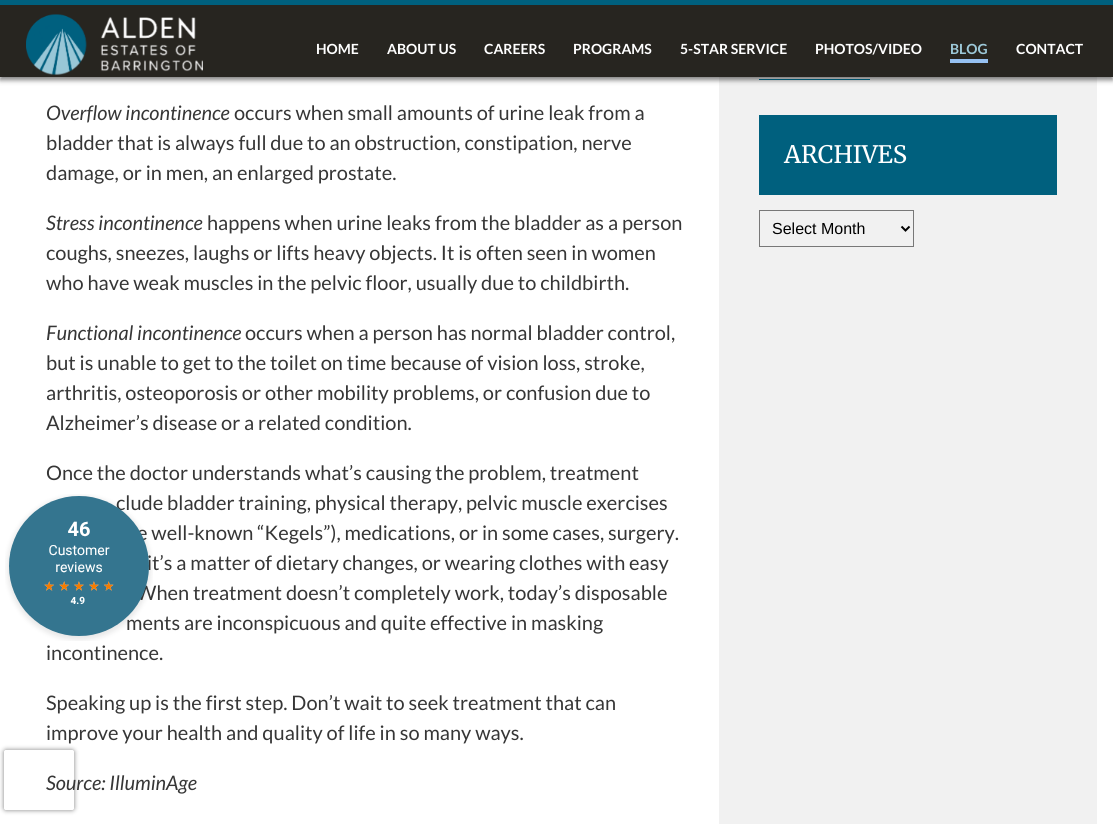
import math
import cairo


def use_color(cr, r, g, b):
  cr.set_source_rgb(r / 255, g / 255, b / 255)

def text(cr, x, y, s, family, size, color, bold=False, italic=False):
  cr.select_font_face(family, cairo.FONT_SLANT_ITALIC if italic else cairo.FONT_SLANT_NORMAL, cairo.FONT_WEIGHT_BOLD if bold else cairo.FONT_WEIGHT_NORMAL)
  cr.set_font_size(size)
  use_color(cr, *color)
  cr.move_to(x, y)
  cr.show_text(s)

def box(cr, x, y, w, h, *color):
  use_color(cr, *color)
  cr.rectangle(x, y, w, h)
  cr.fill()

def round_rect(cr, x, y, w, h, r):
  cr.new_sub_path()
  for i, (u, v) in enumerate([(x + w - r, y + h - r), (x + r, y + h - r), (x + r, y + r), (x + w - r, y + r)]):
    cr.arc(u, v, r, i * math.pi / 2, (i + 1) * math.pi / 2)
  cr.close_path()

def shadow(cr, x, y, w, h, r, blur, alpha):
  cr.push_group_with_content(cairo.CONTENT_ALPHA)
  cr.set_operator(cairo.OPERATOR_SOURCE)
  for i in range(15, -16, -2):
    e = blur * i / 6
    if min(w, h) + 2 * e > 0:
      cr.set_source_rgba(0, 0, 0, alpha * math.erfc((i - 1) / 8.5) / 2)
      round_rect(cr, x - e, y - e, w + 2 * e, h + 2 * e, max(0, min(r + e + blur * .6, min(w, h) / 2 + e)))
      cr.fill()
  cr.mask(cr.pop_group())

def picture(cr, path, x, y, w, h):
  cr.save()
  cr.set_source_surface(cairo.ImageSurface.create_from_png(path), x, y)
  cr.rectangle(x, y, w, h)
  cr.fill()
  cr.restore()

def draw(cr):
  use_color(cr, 255, 255, 255)
  cr.paint()
  box(cr, 719, 77, 378, 747, 241, 241, 241)
  box(cr, 759, 79, 111, 1, 0, 117, 153)
  use_color(cr, 0, 0, 0)
  shadow(cr, 0, 3, 1113, 77, 0, 2.5, 0.5)
  box(cr, 0, 5, 1113, 72, 39, 37, 32)
  box(cr, 0, 0, 1113, 5, 0, 96, 126)
  picture(cr, "img_01.png", 26, 14, 177, 61)
  box(cr, 950, 59, 38, 4, 150, 193, 242)
  box(cr, 759, 115, 298, 80, 0, 96, 126)
  cr.rectangle(759.5, 210.5, 154, 36)
  use_color(cr, 120, 120, 120)
  cr.set_line_width(1)
  cr.stroke()
  cr.new_path()
  cr.move_to(901.5, 226.5)
  cr.line_to(905.5, 230.5)
  cr.line_to(909.5, 226.5)
  use_color(cr, 0, 0, 0)
  cr.set_line_width(2)
  cr.stroke()
  cr.save()
  cr.set_fill_rule(cairo.FILL_RULE_EVEN_ODD)
  cr.new_path()
  cr.move_to(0, 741)
  cr.line_to(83, 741)
  cr.line_to(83, 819)
  cr.line_to(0, 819)
  cr.close_path()
  cr.move_to(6, 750)
  cr.line_to(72, 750)
  cr.curve_to(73, 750, 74, 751, 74, 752)
  cr.line_to(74, 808)
  cr.curve_to(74, 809, 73, 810, 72, 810)
  cr.line_to(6, 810)
  cr.curve_to(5, 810, 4, 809, 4, 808)
  cr.line_to(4, 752)
  cr.curve_to(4, 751, 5, 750, 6, 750)
  cr.close_path()
  cr.clip()
  use_color(cr, 128, 128, 128)
  shadow(cr, 4, 750, 70, 60, 2, 2.5, 1)
  cr.restore()
  text(cr, 316, 54, "HOME", "Lato", 14, (255, 255, 255), bold=True)
  text(cr, 387, 54, "ABOUT US", "Lato", 14, (255, 255, 255), bold=True)
  text(cr, 484, 54, "CAREERS", "Lato", 14, (255, 255, 255), bold=True)
  text(cr, 573, 54, "PROGRAMS", "Lato", 14, (255, 255, 255), bold=True)
  text(cr, 680, 54, "5-STAR SERVICE", "Lato", 14, (255, 255, 255), bold=True)
  text(cr, 815, 54, "PHOTOS/VIDEO", "Lato", 14, (255, 255, 255), bold=True)
  text(cr, 950, 54, "BLOG", "Lato", 14, (157, 201, 217), bold=True)
  text(cr, 1016, 54, "CONTACT", "Lato", 14, (255, 255, 255), bold=True)
  text(cr, 46, 120, "Overflow incontinence", "Lato", 20, (54, 54, 54), italic=True)
  text(cr, 234, 120, "occurs when small amounts of urine leak from a", "Lato", 20, (54, 54, 54))
  text(cr, 46, 150, "bladder that is always full due to an obstruction, constipation, nerve", "Lato", 20, (54, 54, 54))
  text(cr, 46, 180, "damage, or in men, an enlarged prostate.", "Lato", 20, (54, 54, 54))
  text(cr, 46, 230, "Stress incontinence", "Lato", 20, (54, 54, 54), italic=True)
  text(cr, 207, 230, "happens when urine leaks from the bladder as a person", "Lato", 20, (54, 54, 54))
  text(cr, 46, 260, "coughs, sneezes, laughs or lifts heavy objects. It is often seen in women", "Lato", 20, (54, 54, 54))
  text(cr, 46, 290, "who have weak muscles in the pelvic floor, usually due to childbirth.", "Lato", 20, (54, 54, 54))
  text(cr, 46, 340, "Functional incontinence", "Lato", 20, (54, 54, 54), italic=True)
  text(cr, 245, 340, "occurs when a person has normal bladder control,", "Lato", 20, (54, 54, 54))
  text(cr, 46, 370, "but is unable to get to the toilet on time because of vision loss, stroke,", "Lato", 20, (54, 54, 54))
  text(cr, 46, 400, "arthritis, osteoporosis or other mobility problems, or confusion due to", "Lato", 20, (54, 54, 54))
  text(cr, 46, 430, "Alzheimer’s disease or a related condition.", "Lato", 20, (54, 54, 54))
  text(cr, 46, 480, "Once the doctor understands what’s causing the problem, treatment", "Lato", 20, (54, 54, 54))
  text(cr, 116, 510, "clude bladder training, physical therapy, pelvic muscle exercises", "Lato", 20, (54, 54, 54))
  text(cr, 137, 540, "e well-known “Kegels”), medications, or in some cases, surgery.", "Lato", 20, (54, 54, 54))
  text(cr, 147, 570, "it’s a matter of dietary changes, or wearing clothes with easy", "Lato", 20, (54, 54, 54))
  text(cr, 136, 600, "When treatment doesn’t completely work, today’s disposable", "Lato", 20, (54, 54, 54))
  text(cr, 126, 630, "ments are inconspicuous and quite effective in masking", "Lato", 20, (54, 54, 54))
  text(cr, 46, 660, "incontinence.", "Lato", 20, (54, 54, 54))
  text(cr, 46, 710, "Speaking up is the first step. Don’t wait to seek treatment that can", "Lato", 20, (54, 54, 54))
  text(cr, 46, 740, "improve your health and quality of life in so many ways.", "Lato", 20, (54, 54, 54))
  text(cr, 46, 790, "Source: IlluminAge", "Lato", 20, (54, 54, 54), italic=True)
  text(cr, 784, 163, "ARCHIVES", "Merriweather", 24, (255, 255, 255))
  text(cr, 772, 234, "Select Month", "Liberation Sans", 16, (0, 0, 0))
  picture(cr, "img_02.png", 5, 494, 148, 147)


surface = cairo.ImageSurface(cairo.FORMAT_RGB24, 1113, 824)
cr = cairo.Context(surface)
options = cairo.FontOptions()
options.set_hint_metrics(cairo.HINT_METRICS_OFF)
options.set_hint_style(cairo.HINT_STYLE_NONE)
cr.set_font_options(options)
cr.set_miter_limit(4)
draw(cr)
surface.write_to_png("out.png")
